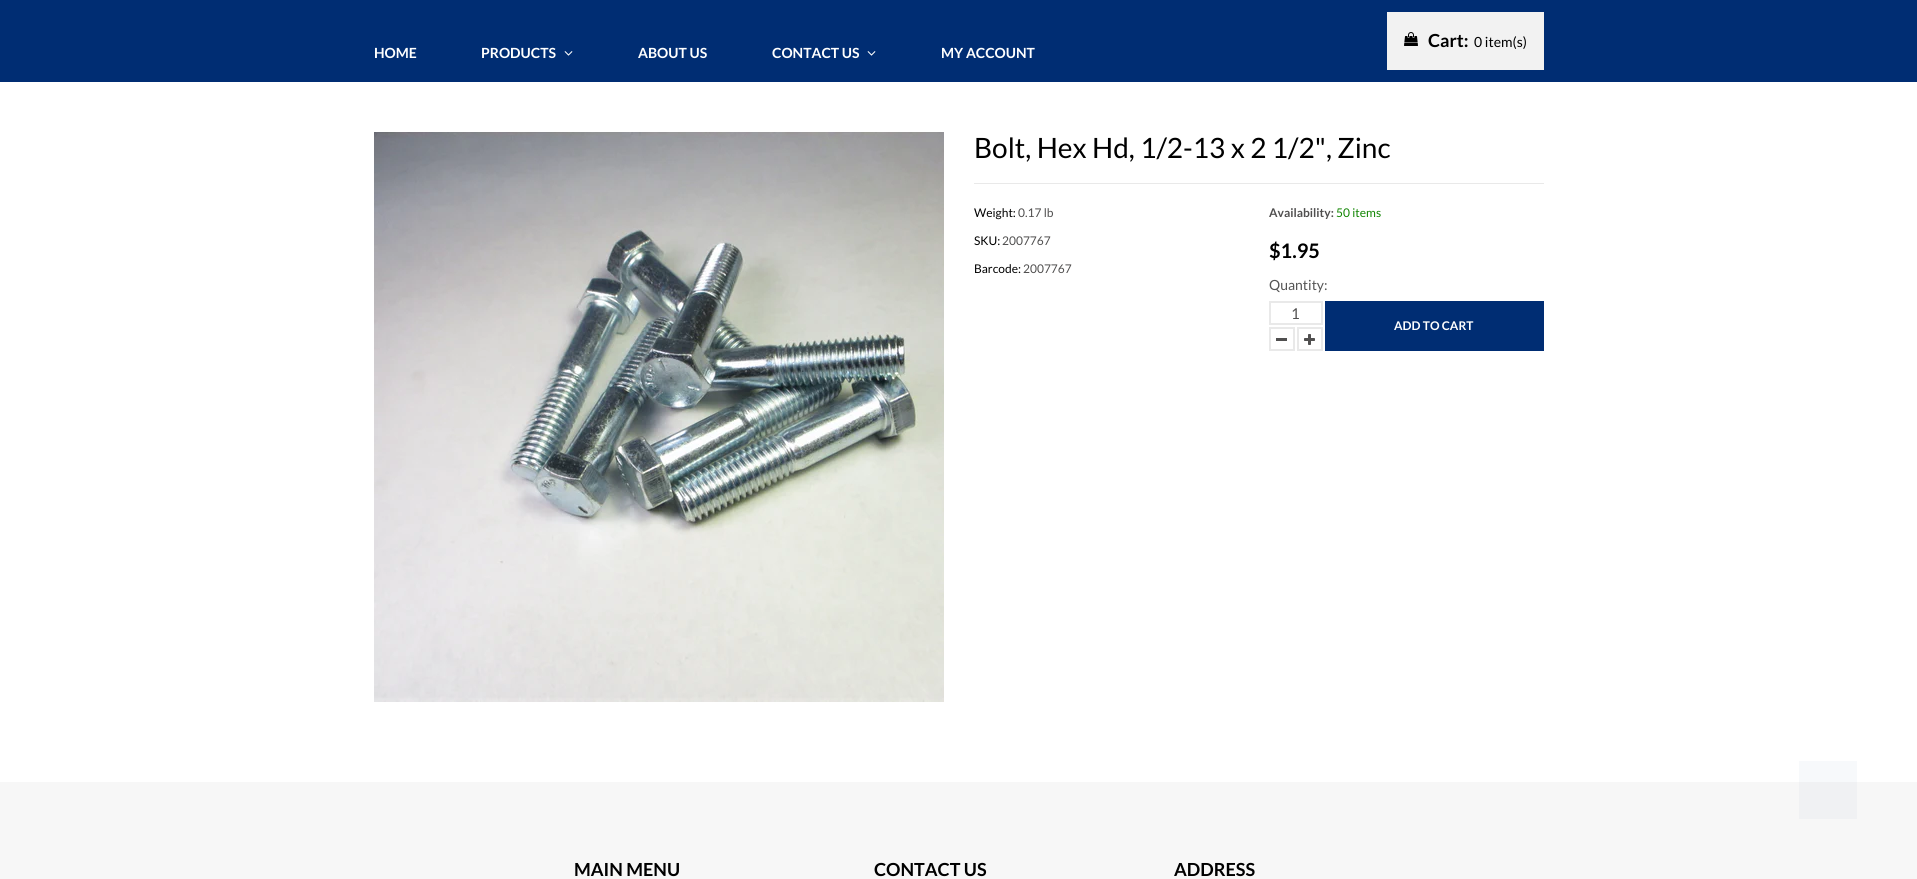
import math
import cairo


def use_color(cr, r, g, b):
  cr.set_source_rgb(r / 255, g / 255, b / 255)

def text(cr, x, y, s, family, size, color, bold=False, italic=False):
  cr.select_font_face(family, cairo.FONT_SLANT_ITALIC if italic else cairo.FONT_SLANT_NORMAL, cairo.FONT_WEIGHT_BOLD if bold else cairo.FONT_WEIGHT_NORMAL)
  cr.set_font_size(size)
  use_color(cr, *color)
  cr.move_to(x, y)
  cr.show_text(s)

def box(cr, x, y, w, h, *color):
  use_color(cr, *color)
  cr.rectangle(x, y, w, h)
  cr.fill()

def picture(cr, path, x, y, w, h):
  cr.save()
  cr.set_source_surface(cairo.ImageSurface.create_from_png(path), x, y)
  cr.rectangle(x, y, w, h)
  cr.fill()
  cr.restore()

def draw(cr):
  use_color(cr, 255, 255, 255)
  cr.paint()
  box(cr, 1799, 761, 58, 21, 247, 249, 251)
  box(cr, 0, 0, 1917, 82, 0, 45, 115)
  box(cr, 1387, 12, 157, 58, 242, 242, 242)
  picture(cr, "img_01.png", 1404, 32, 14, 14)
  picture(cr, "img_02.png", 564, 51, 9, 5)
  picture(cr, "img_02.png", 867, 51, 9, 5)
  picture(cr, "img_03.png", 374, 132, 570, 570)
  box(cr, 974, 183, 570, 1, 233, 233, 233)
  cr.rectangle(1270, 302, 52, 22)
  cr.stroke()
  box(cr, 1325, 301, 219, 50, 0, 45, 115)
  cr.rectangle(1270, 328, 24, 22)
  use_color(cr, 233, 233, 233)
  cr.stroke()
  box(cr, 1276, 338, 11, 3, 80, 79, 79)
  cr.rectangle(1298, 328, 24, 22)
  use_color(cr, 233, 233, 233)
  cr.stroke()
  picture(cr, "img_04.png", 1304, 334, 11, 11)
  box(cr, 0, 782, 1917, 97, 247, 247, 247)
  box(cr, 1799, 782, 58, 37, 240, 241, 243)
  text(cr, 1428, 47, "Cart:", "Lato", 18, (0, 0, 0), bold=True)
  text(cr, 1474, 47, "0 item(s)", "Lato", 14, (0, 0, 0))
  text(cr, 374, 58, "HOME", "Lato", 14, (255, 255, 255), bold=True)
  text(cr, 481, 58, "PRODUCTS", "Lato", 14, (255, 255, 255), bold=True)
  text(cr, 638, 58, "ABOUT US", "Lato", 14, (255, 255, 255), bold=True)
  text(cr, 772, 58, "CONTACT US", "Lato", 14, (255, 255, 255), bold=True)
  text(cr, 941, 58, "MY ACCOUNT", "Lato", 14, (255, 255, 255), bold=True)
  text(cr, 974, 158, "Bolt, Hex Hd, 1/2-13 x 2 1/2\", Zinc", "Lato", 28, (0, 0, 0))
  text(cr, 974, 217, "Weight:", "Lato", 12, (0, 0, 0))
  text(cr, 1018, 217, "0.17 lb", "Lato", 12, (80, 79, 79))
  text(cr, 974, 245, "SKU:", "Lato", 12, (0, 0, 0))
  text(cr, 1002, 245, "2007767", "Lato", 12, (80, 79, 79))
  text(cr, 974, 273, "Barcode:", "Lato", 12, (0, 0, 0))
  text(cr, 1023, 273, "2007767", "Lato", 12, (80, 79, 79))
  text(cr, 1269, 217, "Availability:", "Lato", 12, (80, 79, 79), bold=True)
  text(cr, 1336, 217, "50 items", "Lato", 12, (17, 133, 2))
  text(cr, 1269, 258, "$1.95", "Lato", 20, (0, 0, 0), bold=True)
  text(cr, 1269, 290, "Quantity:", "Lato", 14, (85, 85, 85))
  text(cr, 1291, 319, "1", "Lato", 15, (80, 79, 79))
  text(cr, 1394, 330, "ADD TO CART", "Lato", 12, (255, 255, 255), bold=True)
  text(cr, 574, 876, "MAIN MENU", "Lato", 18, (0, 0, 0), bold=True)
  text(cr, 874, 876, "CONTACT US", "Lato", 18, (0, 0, 0), bold=True)
  text(cr, 1174, 876, "ADDRESS", "Lato", 18, (0, 0, 0), bold=True)


surface = cairo.ImageSurface(cairo.FORMAT_RGB24, 1917, 879)
cr = cairo.Context(surface)
options = cairo.FontOptions()
options.set_hint_metrics(cairo.HINT_METRICS_OFF)
options.set_hint_style(cairo.HINT_STYLE_NONE)
cr.set_font_options(options)
cr.set_miter_limit(4)
draw(cr)
surface.write_to_png("out.png")
